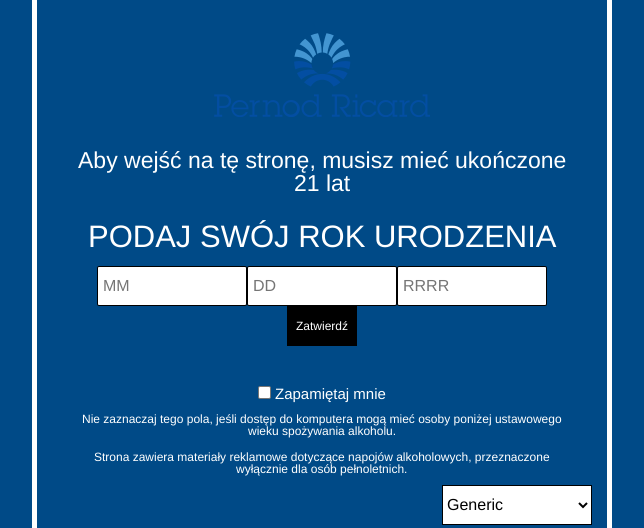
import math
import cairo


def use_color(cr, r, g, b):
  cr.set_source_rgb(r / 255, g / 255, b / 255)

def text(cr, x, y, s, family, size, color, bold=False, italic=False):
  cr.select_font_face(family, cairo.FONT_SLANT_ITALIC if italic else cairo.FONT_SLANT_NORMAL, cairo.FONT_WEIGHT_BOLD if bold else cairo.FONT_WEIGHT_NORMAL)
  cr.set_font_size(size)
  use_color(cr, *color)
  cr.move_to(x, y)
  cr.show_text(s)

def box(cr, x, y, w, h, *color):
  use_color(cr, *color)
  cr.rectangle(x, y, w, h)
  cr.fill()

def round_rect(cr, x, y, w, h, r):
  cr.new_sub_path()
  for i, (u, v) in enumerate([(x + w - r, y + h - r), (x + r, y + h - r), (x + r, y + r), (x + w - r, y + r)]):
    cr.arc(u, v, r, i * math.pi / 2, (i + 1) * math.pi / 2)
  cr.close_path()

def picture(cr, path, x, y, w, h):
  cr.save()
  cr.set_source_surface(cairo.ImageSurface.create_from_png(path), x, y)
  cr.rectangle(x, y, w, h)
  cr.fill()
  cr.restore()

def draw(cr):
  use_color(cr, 0, 74, 135)
  cr.paint()
  cr.rectangle(34.5, -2.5, 575, 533)
  use_color(cr, 255, 255, 255)
  cr.set_line_width(5)
  cr.stroke()
  picture(cr, "img_01.png", 214, 33, 216, 84)
  round_rect(cr, 97.5, 266.5, 149, 39, 1.5)
  cr.fill_preserve()
  use_color(cr, 0, 0, 0)
  cr.set_line_width(1)
  cr.stroke()
  use_color(cr, 255, 255, 255)
  round_rect(cr, 247.5, 266.5, 149, 39, 1.5)
  cr.fill_preserve()
  use_color(cr, 0, 0, 0)
  cr.stroke()
  use_color(cr, 255, 255, 255)
  round_rect(cr, 397.5, 266.5, 149, 39, 1.5)
  cr.fill_preserve()
  use_color(cr, 0, 0, 0)
  cr.stroke()
  box(cr, 287, 306, 70, 40, 0, 0, 0)
  use_color(cr, 255, 255, 255)
  round_rect(cr, 258.5, 386.5, 12, 12, 1.5)
  cr.fill_preserve()
  use_color(cr, 118, 118, 118)
  cr.stroke()
  use_color(cr, 255, 255, 255)
  cr.rectangle(442.5, 485.5, 149, 39)
  cr.fill_preserve()
  use_color(cr, 0, 0, 0)
  cr.stroke()
  cr.new_path()
  cr.move_to(579, 503)
  cr.line_to(583, 507)
  cr.line_to(587, 503)
  cr.set_line_width(2)
  cr.stroke()
  text(cr, 78, 168, "Aby wejść na tę stronę, musisz mieć ukończone", "Liberation Sans", 23, (255, 255, 255))
  text(cr, 294, 191, "21 lat", "Liberation Sans", 23, (255, 255, 255))
  text(cr, 88, 247, "PODAJ SWÓJ ROK URODZENIA", "Liberation Sans", 31, (255, 255, 255))
  text(cr, 103, 291, "MM", "Liberation Sans", 16, (117, 117, 117))
  text(cr, 253, 291, "DD", "Liberation Sans", 16, (117, 117, 117))
  text(cr, 403, 291, "RRRR", "Liberation Sans", 16, (117, 117, 117))
  text(cr, 296, 330, "Zatwierdź", "Liberation Sans", 12, (255, 255, 255))
  text(cr, 275, 399, "Zapamiętaj mnie", "Liberation Sans", 15, (255, 255, 255))
  text(cr, 82, 423, "Nie zaznaczaj tego pola, jeśli dostęp do komputera mogą mieć osoby poniżej ustawowego", "Liberation Sans", 12, (255, 255, 255))
  text(cr, 248, 435, "wieku spożywania alkoholu.", "Liberation Sans", 12, (255, 255, 255))
  text(cr, 94, 461, "Strona zawiera materiały reklamowe dotyczące napojów alkoholowych, przeznaczone", "Liberation Sans", 12, (255, 255, 255))
  text(cr, 236, 473, "wyłącznie dla osób pełnoletnich.", "Liberation Sans", 12, (255, 255, 255))
  text(cr, 447, 510, "Generic", "Liberation Sans", 16, (0, 0, 0))


surface = cairo.ImageSurface(cairo.FORMAT_RGB24, 644, 528)
cr = cairo.Context(surface)
options = cairo.FontOptions()
options.set_hint_metrics(cairo.HINT_METRICS_OFF)
options.set_hint_style(cairo.HINT_STYLE_NONE)
cr.set_font_options(options)
cr.set_miter_limit(4)
draw(cr)
surface.write_to_png("out.png")
